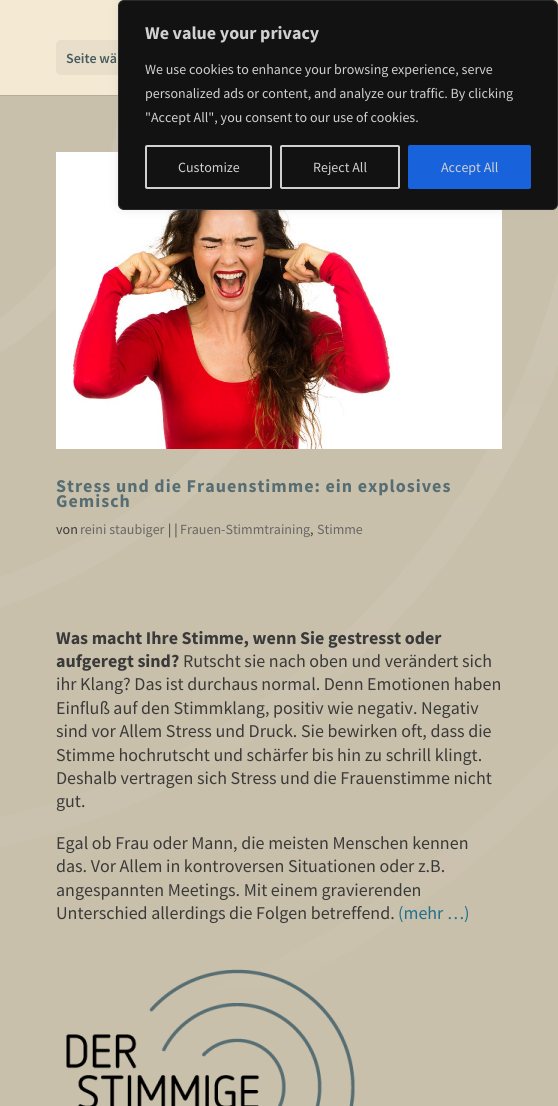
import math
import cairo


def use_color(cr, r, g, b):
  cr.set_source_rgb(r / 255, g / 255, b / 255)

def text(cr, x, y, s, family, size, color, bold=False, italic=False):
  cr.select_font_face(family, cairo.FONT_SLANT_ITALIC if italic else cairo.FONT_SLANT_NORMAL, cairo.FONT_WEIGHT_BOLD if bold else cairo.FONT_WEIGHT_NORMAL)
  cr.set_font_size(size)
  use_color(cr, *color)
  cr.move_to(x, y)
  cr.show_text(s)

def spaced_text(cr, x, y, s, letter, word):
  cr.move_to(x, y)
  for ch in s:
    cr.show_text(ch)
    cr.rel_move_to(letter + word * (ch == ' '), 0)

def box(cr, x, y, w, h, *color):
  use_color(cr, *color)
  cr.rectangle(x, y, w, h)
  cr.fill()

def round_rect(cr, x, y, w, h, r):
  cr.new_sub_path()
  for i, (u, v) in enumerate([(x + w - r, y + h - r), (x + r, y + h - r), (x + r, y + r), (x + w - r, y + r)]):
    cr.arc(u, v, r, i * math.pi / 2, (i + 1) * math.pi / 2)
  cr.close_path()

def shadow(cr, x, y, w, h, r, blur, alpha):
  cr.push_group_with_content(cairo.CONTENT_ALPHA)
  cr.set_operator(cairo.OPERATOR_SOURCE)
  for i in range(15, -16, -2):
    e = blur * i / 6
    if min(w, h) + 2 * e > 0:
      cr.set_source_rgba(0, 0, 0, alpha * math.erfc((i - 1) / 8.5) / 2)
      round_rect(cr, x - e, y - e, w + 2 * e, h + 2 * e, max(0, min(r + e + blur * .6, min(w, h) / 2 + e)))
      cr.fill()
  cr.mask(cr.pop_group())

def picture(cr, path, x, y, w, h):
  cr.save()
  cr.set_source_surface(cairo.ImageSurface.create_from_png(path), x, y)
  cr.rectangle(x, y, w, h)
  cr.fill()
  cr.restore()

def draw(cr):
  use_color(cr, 201, 192, 171)
  cr.paint()
  picture(cr, "img_01.png", 0, 112, 558, 877)
  cr.set_source_rgba(0, 0, 0, 0.1)
  cr.rectangle(0, 95, 118, 1)
  cr.fill()
  box(cr, 0, 0, 558, 95, 244, 234, 212)
  use_color(cr, 232, 222, 201)
  round_rect(cr, 56, 40, 446, 35, 5)
  cr.fill()
  picture(cr, "img_02.png", 56, 152, 446, 297)
  use_color(cr, 172, 171, 171)
  shadow(cr, 118, -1, 440, 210, 6, 5, 0.3)
  use_color(cr, 18, 18, 18)
  round_rect(cr, 118.5, 0.5, 439, 209, 5.5)
  cr.fill_preserve()
  use_color(cr, 42, 42, 42)
  cr.set_line_width(1)
  cr.stroke()
  round_rect(cr, 146, 146, 125, 42, 1)
  use_color(cr, 208, 208, 208)
  cr.set_line_width(2)
  cr.stroke()
  round_rect(cr, 281, 146, 118, 42, 1)
  cr.stroke()
  use_color(cr, 24, 99, 220)
  round_rect(cr, 409, 146, 121, 42, 1)
  cr.fill_preserve()
  cr.stroke()
  picture(cr, "img_03.png", 66, 969, 289, 137)
  text(cr, 145, 39, "We value your privacy", "Source Sans Pro", 18, (208, 208, 208), bold=True)
  text(cr, 145, 74, "We use cookies to enhance your browsing experience, serve", "Source Sans Pro", 14, (208, 208, 208))
  text(cr, 145, 98, "personalized ads or content, and analyze our traffic. By clicking", "Source Sans Pro", 14, (208, 208, 208))
  text(cr, 145, 122, "\"Accept All\", you consent to our use of cookies.", "Source Sans Pro", 14, (208, 208, 208))
  text(cr, 178, 172, "Customize", "Source Sans Pro", 14, (208, 208, 208))
  text(cr, 313, 172, "Reject All", "Source Sans Pro", 14, (208, 208, 208))
  text(cr, 441, 172, "Accept All", "Source Sans Pro", 14, (208, 208, 208))
  text(cr, 66, 63, "Seite wä", "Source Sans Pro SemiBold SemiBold", 14, (70, 91, 96))
  cr.select_font_face("Source Sans Pro", cairo.FONT_SLANT_NORMAL, cairo.FONT_WEIGHT_BOLD)
  cr.set_font_size(18)
  use_color(cr, 86, 110, 115)
  spaced_text(cr, 56, 492, "Stress und die Frauenstimme: ein explosives", 1, 0)
  spaced_text(cr, 56, 507, "Gemisch", 1, 0)
  text(cr, 56, 534, "von", "Source Sans Pro", 14, (58, 58, 58))
  text(cr, 80, 534, "reini staubiger", "Source Sans Pro", 14, (102, 102, 102))
  text(cr, 168, 534, "| |", "Source Sans Pro", 14, (58, 58, 58))
  text(cr, 180, 534, "Frauen-Stimmtraining", "Source Sans Pro", 14, (102, 102, 102))
  text(cr, 310, 534, ",", "Source Sans Pro", 14, (58, 58, 58))
  text(cr, 317, 534, "Stimme", "Source Sans Pro", 14, (102, 102, 102))
  text(cr, 56, 644, "Was macht Ihre Stimme, wenn Sie gestresst oder", "Source Sans Pro", 18, (58, 58, 58), bold=True)
  text(cr, 56, 667, "aufgeregt sind?", "Source Sans Pro", 18, (58, 58, 58), bold=True)
  text(cr, 183, 667, "Rutscht sie nach oben und verändert sich", "Source Sans Pro", 18, (58, 58, 58))
  text(cr, 56, 690, "ihr Klang? Das ist durchaus normal. Denn Emotionen haben", "Source Sans Pro", 18, (58, 58, 58))
  text(cr, 56, 714, "Einfluß auf den Stimmklang, positiv wie negativ. Negativ", "Source Sans Pro", 18, (58, 58, 58))
  text(cr, 56, 737, "sind vor Allem Stress und Druck. Sie bewirken oft, dass die", "Source Sans Pro", 18, (58, 58, 58))
  text(cr, 56, 761, "Stimme hochrutscht und schärfer bis hin zu schrill klingt.", "Source Sans Pro", 18, (58, 58, 58))
  text(cr, 56, 784, "Deshalb vertragen sich Stress und die Frauenstimme nicht", "Source Sans Pro", 18, (58, 58, 58))
  text(cr, 56, 807, "gut.", "Source Sans Pro", 18, (58, 58, 58))
  text(cr, 56, 849, "Egal ob Frau oder Mann, die meisten Menschen kennen", "Source Sans Pro", 18, (58, 58, 58))
  text(cr, 56, 872, "das. Vor Allem in kontroversen Situationen oder z.B.", "Source Sans Pro", 18, (58, 58, 58))
  text(cr, 56, 896, "angespannten Meetings. Mit einem gravierenden", "Source Sans Pro", 18, (58, 58, 58))
  text(cr, 56, 919, "Unterschied allerdings die Folgen betreffend.", "Source Sans Pro", 18, (58, 58, 58))
  text(cr, 398, 919, "(mehr …)", "Source Sans Pro", 18, (32, 111, 142))


surface = cairo.ImageSurface(cairo.FORMAT_RGB24, 558, 1106)
cr = cairo.Context(surface)
options = cairo.FontOptions()
options.set_hint_metrics(cairo.HINT_METRICS_OFF)
options.set_hint_style(cairo.HINT_STYLE_NONE)
cr.set_font_options(options)
cr.set_miter_limit(4)
draw(cr)
surface.write_to_png("out.png")
